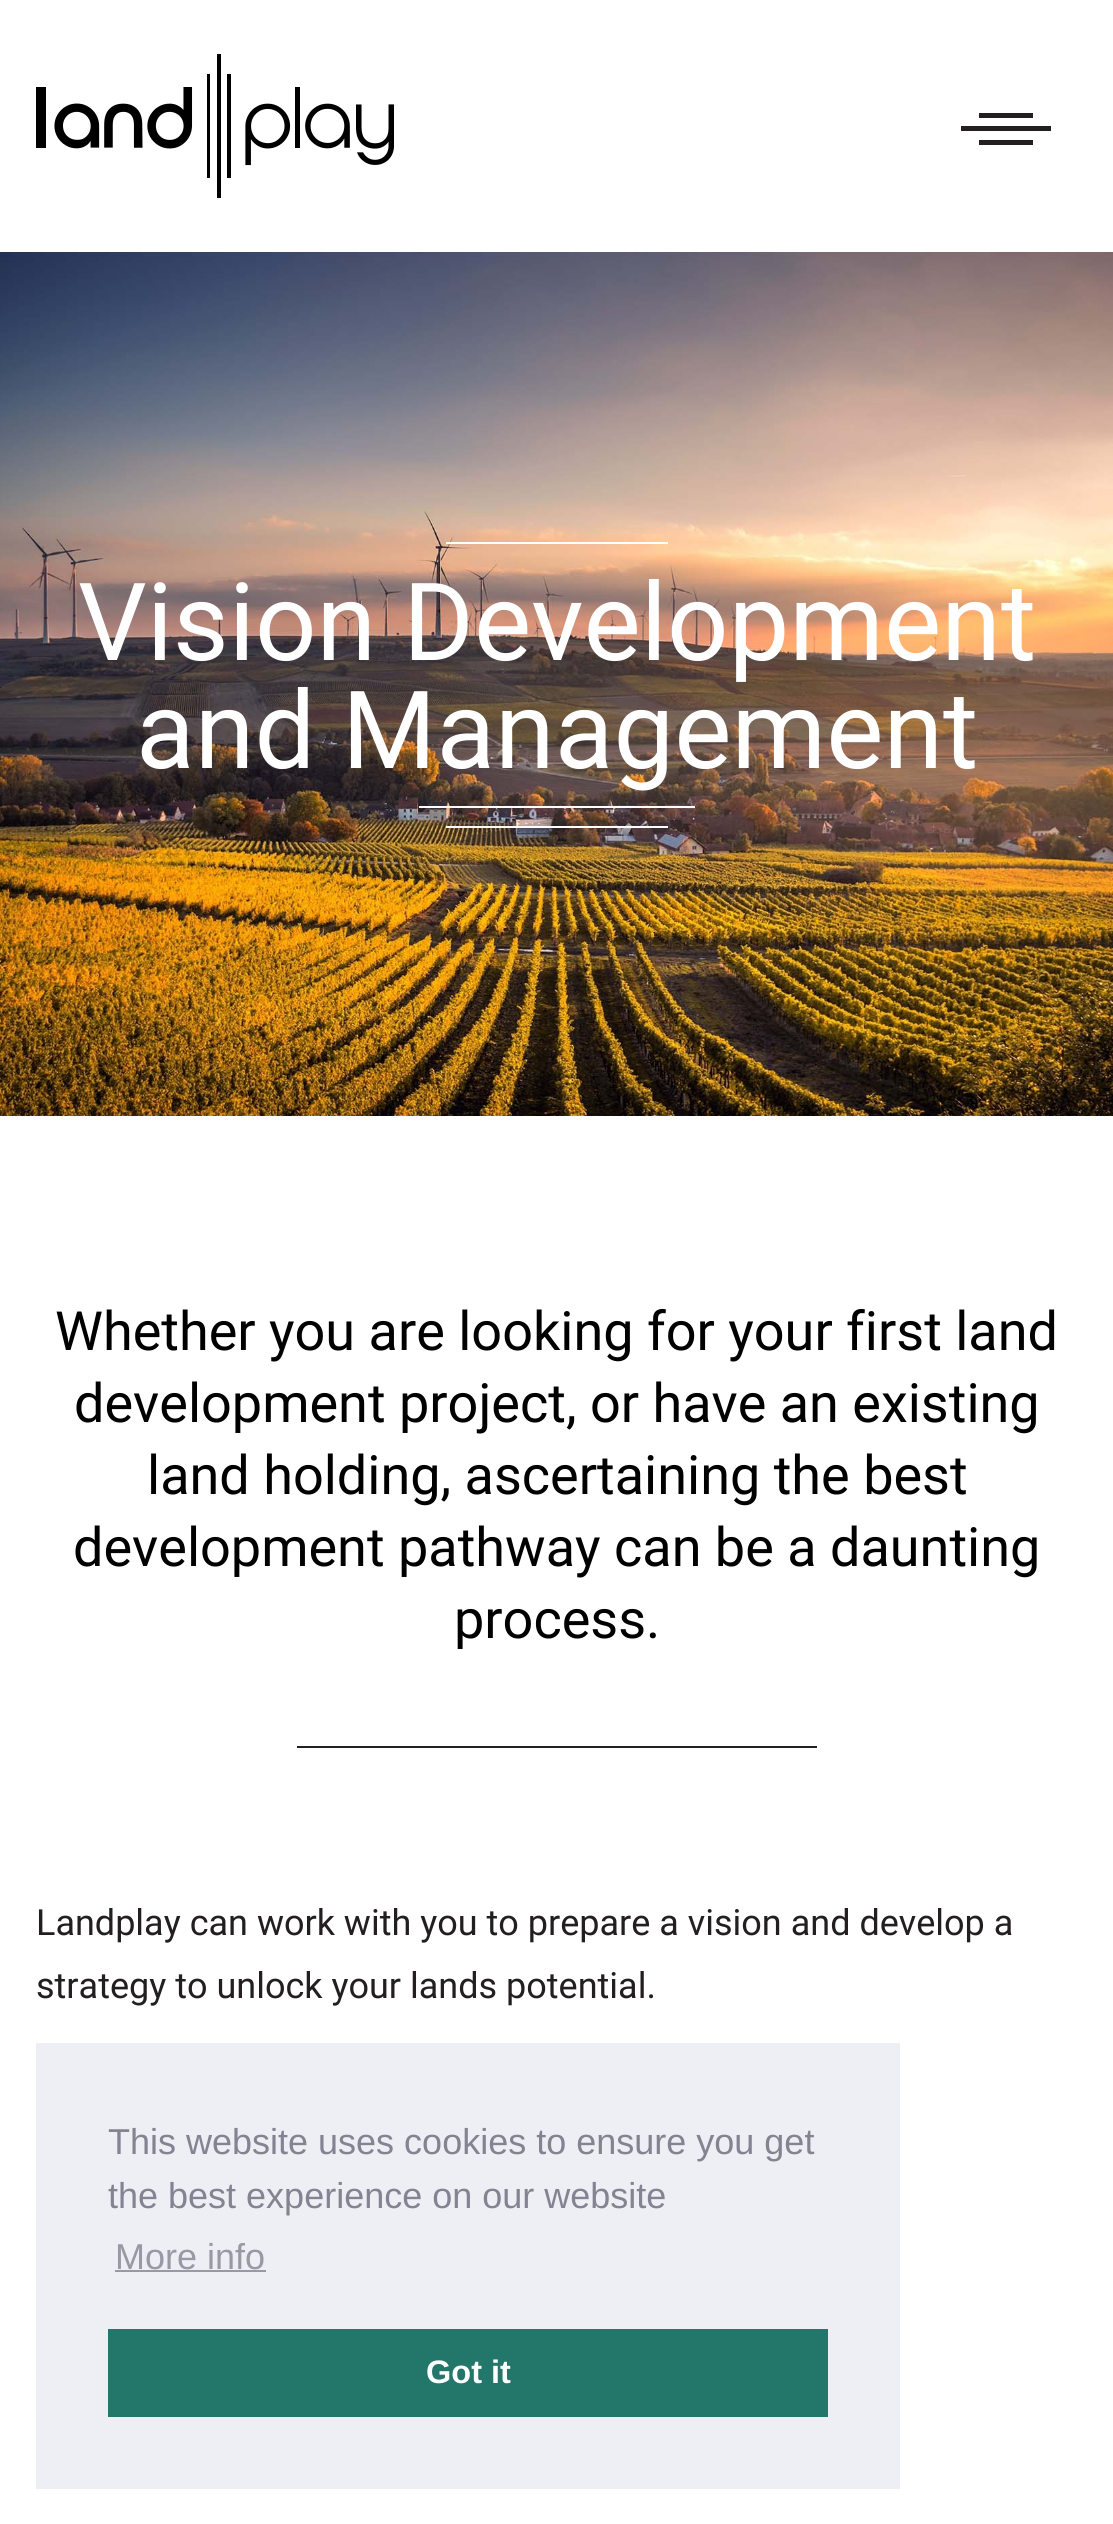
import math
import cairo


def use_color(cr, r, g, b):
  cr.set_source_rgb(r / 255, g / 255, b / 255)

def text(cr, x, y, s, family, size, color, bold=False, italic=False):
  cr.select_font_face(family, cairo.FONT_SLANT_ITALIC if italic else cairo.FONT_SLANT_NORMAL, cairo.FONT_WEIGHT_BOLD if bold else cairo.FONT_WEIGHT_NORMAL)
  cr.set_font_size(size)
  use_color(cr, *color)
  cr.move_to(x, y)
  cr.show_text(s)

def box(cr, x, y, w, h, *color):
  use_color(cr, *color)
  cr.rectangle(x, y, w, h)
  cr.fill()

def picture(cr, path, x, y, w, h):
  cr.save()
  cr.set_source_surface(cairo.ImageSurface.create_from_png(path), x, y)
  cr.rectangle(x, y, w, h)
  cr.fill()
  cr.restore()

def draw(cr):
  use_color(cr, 255, 255, 255)
  cr.paint()
  picture(cr, "img_01.png", 36, 54, 358, 144)
  box(cr, 979, 113, 54, 5, 35, 31, 32)
  box(cr, 961, 126, 90, 5, 35, 31, 32)
  box(cr, 979, 140, 54, 5, 35, 31, 32)
  picture(cr, "img_02.png", 0, 252, 1113, 864)
  box(cr, 446, 542, 222, 2, 255, 255, 255)
  box(cr, 419, 806, 276, 2, 255, 255, 255)
  box(cr, 446, 826, 222, 2, 255, 255, 255)
  box(cr, 297, 1746, 520, 2, 35, 31, 32)
  box(cr, 36, 2043, 864, 446, 237, 239, 245)
  box(cr, 115, 2270, 151, 2, 152, 153, 165)
  box(cr, 108, 2329, 720, 88, 35, 118, 106)
  text(cr, 78, 660, "Vision Development", "Roboto", 108, (255, 255, 255))
  text(cr, 136, 768, "and Management", "Roboto", 108, (255, 255, 255))
  text(cr, 55, 1350, "Whether you are looking for your first land", "Roboto", 54, (0, 0, 0))
  text(cr, 74, 1422, "development project, or have an existing", "Roboto", 54, (0, 0, 0))
  text(cr, 147, 1494, "land holding, ascertaining the best", "Roboto", 54, (0, 0, 0))
  text(cr, 73, 1566, "development pathway can be a daunting", "Roboto", 54, (0, 0, 0))
  text(cr, 454, 1638, "process.", "Roboto", 54, (0, 0, 0))
  text(cr, 36, 1935, "Landplay can work with you to prepare a vision and develop a", "Roboto", 36, (35, 31, 32))
  text(cr, 36, 1998, "strategy to unlock your lands potential.", "Roboto", 36, (35, 31, 32))
  text(cr, 108, 2154, "This website uses cookies to ensure you get", "Liberation Sans", 36, (131, 131, 145))
  text(cr, 108, 2208, "the best experience on our website", "Liberation Sans", 36, (131, 131, 145))
  text(cr, 115, 2269, "More info", "Liberation Sans", 36, (152, 153, 165))
  text(cr, 426, 2383, "Got it", "Liberation Sans", 32.5, (255, 255, 255), bold=True)


surface = cairo.ImageSurface(cairo.FORMAT_RGB24, 1113, 2524)
cr = cairo.Context(surface)
options = cairo.FontOptions()
options.set_hint_metrics(cairo.HINT_METRICS_OFF)
options.set_hint_style(cairo.HINT_STYLE_NONE)
cr.set_font_options(options)
cr.set_miter_limit(4)
draw(cr)
surface.write_to_png("out.png")
